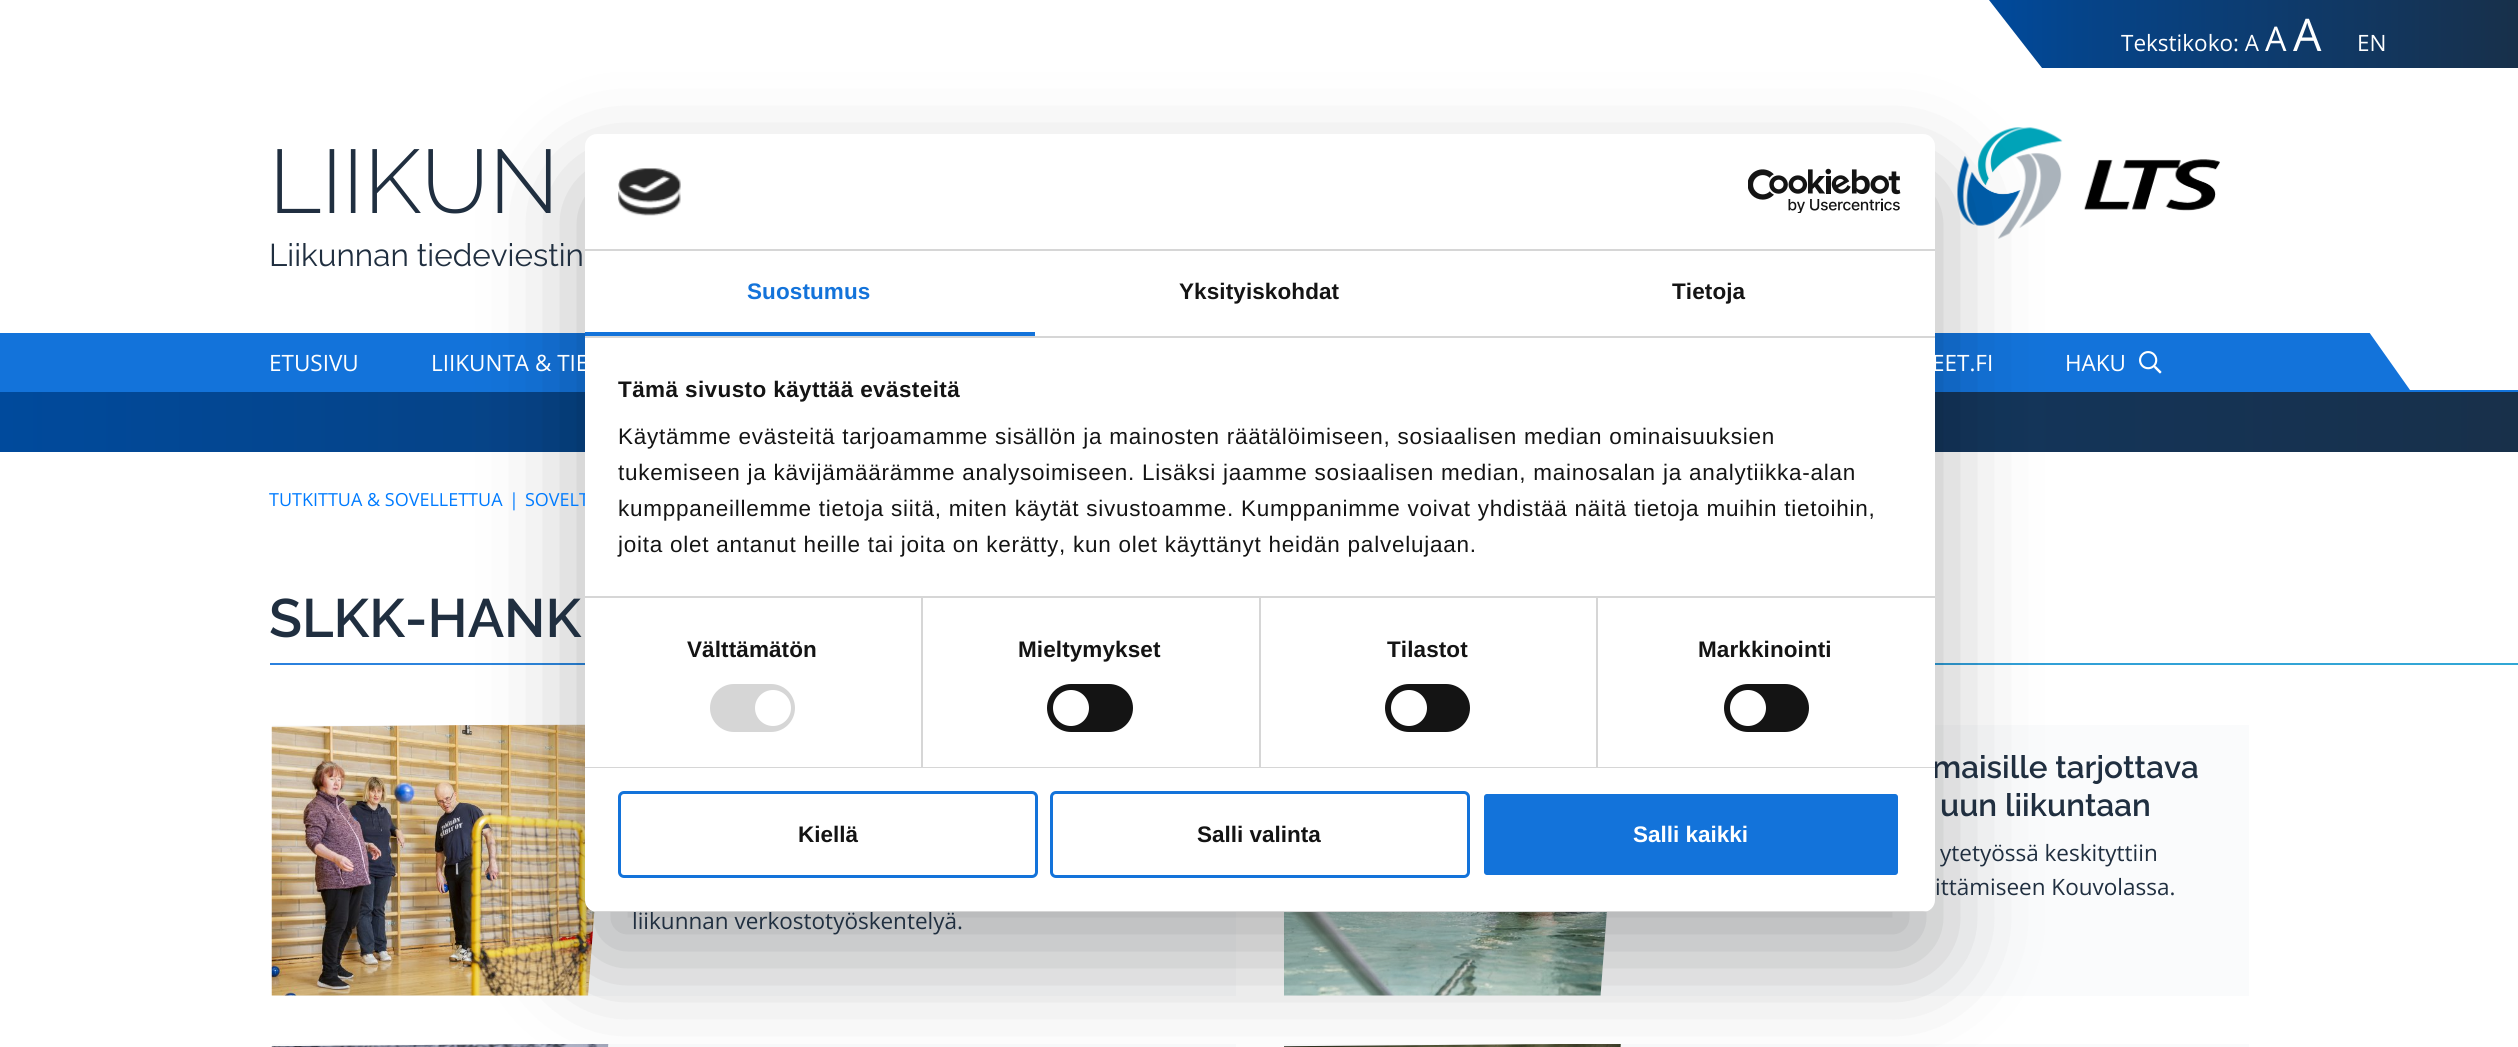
import math
import cairo


def use_color(cr, r, g, b):
  cr.set_source_rgb(r / 255, g / 255, b / 255)

def text(cr, x, y, s, family, size, color, bold=False, italic=False):
  cr.select_font_face(family, cairo.FONT_SLANT_ITALIC if italic else cairo.FONT_SLANT_NORMAL, cairo.FONT_WEIGHT_BOLD if bold else cairo.FONT_WEIGHT_NORMAL)
  cr.set_font_size(size)
  use_color(cr, *color)
  cr.move_to(x, y)
  cr.show_text(s)

def spaced_text(cr, x, y, s, letter, word):
  cr.move_to(x, y)
  for ch in s:
    cr.show_text(ch)
    cr.rel_move_to(letter + word * (ch == ' '), 0)

def box(cr, x, y, w, h, *color):
  use_color(cr, *color)
  cr.rectangle(x, y, w, h)
  cr.fill()

def round_rect(cr, x, y, w, h, r):
  cr.new_sub_path()
  for i, (u, v) in enumerate([(x + w - r, y + h - r), (x + r, y + h - r), (x + r, y + r), (x + w - r, y + r)]):
    cr.arc(u, v, r, i * math.pi / 2, (i + 1) * math.pi / 2)
  cr.close_path()

def shadow(cr, x, y, w, h, r, blur, alpha):
  cr.push_group_with_content(cairo.CONTENT_ALPHA)
  cr.set_operator(cairo.OPERATOR_SOURCE)
  for i in range(15, -16, -2):
    e = blur * i / 6
    if min(w, h) + 2 * e > 0:
      cr.set_source_rgba(0, 0, 0, alpha * math.erfc((i - 1) / 8.5) / 2)
      round_rect(cr, x - e, y - e, w + 2 * e, h + 2 * e, max(0, min(r + e + blur * .6, min(w, h) / 2 + e)))
      cr.fill()
  cr.mask(cr.pop_group())

def picture(cr, path, x, y, w, h):
  cr.save()
  cr.set_source_surface(cairo.ImageSurface.create_from_png(path), x, y)
  cr.rectangle(x, y, w, h)
  cr.fill()
  cr.restore()

def draw(cr):
  use_color(cr, 255, 255, 255)
  cr.paint()
  gradient = cairo.LinearGradient(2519, 34, 1989, 34)
  gradient.add_color_stop_rgba(0, 0.094, 0.188, 0.29, 1)
  gradient.add_color_stop_rgba(0.83, 0.02, 0.267, 0.541, 1)
  gradient.add_color_stop_rgba(1, 0, 0.29, 0.612, 1)
  cr.set_source(gradient)
  cr.new_path()
  cr.move_to(1989, 0)
  cr.line_to(2042, 68)
  cr.line_to(2518, 68)
  cr.line_to(2518, 0)
  cr.close_path()
  cr.fill()
  picture(cr, "img_01.png", 1957, 127, 263, 112)
  box(cr, 0, 333, 2518, 59, 19, 115, 218)
  picture(cr, "img_02.png", 2139, 351, 23, 23)
  use_color(cr, 255, 255, 255)
  cr.new_path()
  cr.move_to(2369, 332)
  cr.line_to(2518, 332)
  cr.line_to(2518, 390)
  cr.line_to(2410, 390)
  cr.close_path()
  cr.fill()
  gradient = cairo.LinearGradient(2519, 421, 0, 422)
  gradient.add_color_stop_rgba(0, 0.094, 0.188, 0.29, 1)
  gradient.add_color_stop_rgba(0.83, 0.02, 0.267, 0.541, 1)
  gradient.add_color_stop_rgba(1, 0, 0.29, 0.612, 1)
  cr.set_source(gradient)
  cr.rectangle(0, 392, 2518, 60)
  cr.fill()
  gradient = cairo.LinearGradient(270, 664, 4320, 664)
  gradient.add_color_stop_rgba(0, 0.169, 0.506, 0.871, 1)
  gradient.add_color_stop_rgba(0.53, 0.196, 0.651, 0.839, 1)
  gradient.add_color_stop_rgba(1, 0.102, 0.714, 0.796, 1)
  cr.set_source(gradient)
  cr.rectangle(270, 663, 2248, 2)
  cr.fill()
  box(cr, 1284, 725, 965, 271, 250, 251, 252)
  picture(cr, "img_05.png", 1284, 912, 323, 84)
  box(cr, 272, 725, 964, 271, 250, 251, 252)
  picture(cr, "img_06.png", 271, 724, 324, 272)
  box(cr, 272, 1044, 964, 3, 250, 251, 252)
  picture(cr, "img_07.png", 271, 1044, 338, 3)
  box(cr, 1284, 1044, 965, 3, 250, 251, 252)
  picture(cr, "img_08.png", 1284, 1044, 337, 3)
  use_color(cr, 0, 0, 0)
  shadow(cr, 585, 182, 1350, 778, 12, 51, 0.3)
  text(cr, 2121, 51, "Tekstikoko: A", "Open Sans", 22.5, (255, 255, 255))
  text(cr, 2265, 51, "A", "Open Sans", 34, (255, 255, 255))
  text(cr, 2293, 51, "A", "Open Sans", 45, (255, 255, 255))
  text(cr, 2357, 51, "EN", "Open Sans", 22.5, (255, 255, 255))
  text(cr, 269, 213, "LIIKUN", "Raleway Light", 90, (32, 47, 64))
  text(cr, 269, 266, "Liikunnan tiedeviestin", "Raleway", 31.5, (32, 47, 64))
  text(cr, 269, 371, "ETUSIVU", "Open Sans", 22.5, (255, 255, 255))
  text(cr, 431, 371, "LIIKUNTA & TIE", "Open Sans", 22.5, (255, 255, 255))
  text(cr, 1932, 371, "EET.FI", "Open Sans", 22.5, (255, 255, 255))
  text(cr, 2065, 371, "HAKU", "Open Sans", 22.5, (255, 255, 255))
  text(cr, 269, 506, "TUTKITTUA & SOVELLETTUA", "Open Sans", 18, (0, 123, 255))
  text(cr, 509, 506, "|", "Open Sans", 18, (0, 123, 255))
  text(cr, 525, 506, "SOVELT", "Open Sans", 18, (0, 123, 255))
  text(cr, 269, 637, "SLKK-HANK", "Raleway SemiBold", 54, (32, 47, 64))
  text(cr, 1932, 778, "maisille tarjottava", "Raleway SemiBold", 31.5, (32, 47, 64))
  text(cr, 1940, 816, "uun liikuntaan", "Raleway SemiBold", 31.5, (32, 47, 64))
  text(cr, 1940, 861, "ytetyössä keskityttiin", "Open Sans", 22.5, (32, 47, 64))
  text(cr, 1935, 895, "ittämiseen Kouvolassa.", "Open Sans", 22.5, (32, 47, 64))
  text(cr, 632, 929, "liikunnan verkostotyöskentelyä.", "Open Sans", 22.5, (32, 47, 64))
  use_color(cr, 255, 255, 255)
  round_rect(cr, 585, 134, 1350, 778, 12)
  cr.fill()
  use_color(cr, 19, 115, 218)
  round_rect(cr, 1482.5, 792.5, 417, 84, 4.5)
  cr.fill_preserve()
  use_color(cr, 255, 255, 255)
  cr.set_line_width(3)
  cr.stroke()
  text(cr, 1633, 842, "Salli kaikki", "Liberation Sans", 22.5, (255, 255, 255), bold=True)
  round_rect(cr, 1051.5, 792.5, 417, 84, 4.5)
  use_color(cr, 19, 115, 218)
  cr.stroke()
  text(cr, 1197, 842, "Salli valinta", "Liberation Sans", 22.5, (20, 20, 20), bold=True)
  round_rect(cr, 619.5, 792.5, 417, 84, 4.5)
  use_color(cr, 19, 115, 218)
  cr.stroke()
  text(cr, 798, 842, "Kiellä", "Liberation Sans", 22.5, (20, 20, 20), bold=True)
  cr.save()
  round_rect(cr, 585, 134, 1350, 778, 12)
  cr.clip()
  box(cr, 585, 911, 1350, 1, 214, 214, 214)
  cr.restore()
  round_rect(cr, 1724, 684, 85, 48, 24)
  cr.fill()
  use_color(cr, 255, 255, 255)
  cr.arc(1748, 708, 18, 0, 2 * math.pi)
  cr.fill()
  use_color(cr, 20, 20, 20)
  round_rect(cr, 1385, 684, 85, 48, 24)
  cr.fill()
  use_color(cr, 255, 255, 255)
  cr.arc(1409, 708, 18, 0, 2 * math.pi)
  cr.fill()
  use_color(cr, 20, 20, 20)
  round_rect(cr, 1047, 684, 86, 48, 24)
  cr.fill()
  use_color(cr, 255, 255, 255)
  cr.arc(1071, 708, 18, 0, 2 * math.pi)
  cr.fill()
  use_color(cr, 214, 214, 214)
  round_rect(cr, 710, 684, 85, 48, 24)
  cr.fill()
  use_color(cr, 255, 255, 255)
  cr.arc(773, 708, 18, 0, 2 * math.pi)
  cr.fill()
  cr.select_font_face("Liberation Sans")
  use_color(cr, 20, 20, 20)
  spaced_text(cr, 618, 552, "joita olet antanut heille tai joita on kerätty, kun olet käyttänyt heidän palvelujaan.", 0.75, 0)
  spaced_text(cr, 618, 516, "kumppaneillemme tietoja siitä, miten käytät sivustoamme. Kumppanimme voivat yhdistää näitä tietoja muihin tietoihin,", 0.75, 0)
  spaced_text(cr, 618, 480, "tukemiseen ja kävijämäärämme analysoimiseen. Lisäksi jaamme sosiaalisen median, mainosalan ja analytiikka-alan", 0.75, 0)
  spaced_text(cr, 618, 444, "Käytämme evästeitä tarjoamamme sisällön ja mainosten räätälöimiseen, sosiaalisen median ominaisuuksien", 0.75, 0)
  cr.select_font_face("Liberation Sans", cairo.FONT_SLANT_NORMAL, cairo.FONT_WEIGHT_BOLD)
  spaced_text(cr, 618, 397, "Tämä sivusto käyttää evästeitä", 0.4, 0)
  box(cr, 1596, 597, 2, 170, 214, 214, 214)
  box(cr, 1259, 597, 2, 170, 214, 214, 214)
  box(cr, 921, 597, 2, 170, 214, 214, 214)
  box(cr, 585, 596, 1350, 2, 214, 214, 214)
  use_color(cr, 20, 20, 20)
  spaced_text(cr, 1672, 299, "Tietoja", 0.1, 0)
  spaced_text(cr, 1179, 299, "Yksityiskohdat", 0.1, 0)
  use_color(cr, 19, 115, 218)
  spaced_text(cr, 747, 299, "Suostumus", 0.1, 0)
  box(cr, 585, 332, 450, 4, 19, 115, 218)
  box(cr, 585, 336, 1350, 2, 214, 214, 214)
  use_color(cr, 20, 20, 20)
  spaced_text(cr, 1698, 657, "Markkinointi", 0.1, 0)
  spaced_text(cr, 1387, 657, "Tilastot", 0.1, 0)
  spaced_text(cr, 1018, 657, "Mieltymykset", 0.1, 0)
  spaced_text(cr, 687, 657, "Välttämätön", 0.1, 0)
  box(cr, 585, 767, 1350, 1, 214, 214, 214)
  picture(cr, "img_04.png", 1748, 168, 153, 45)
  picture(cr, "img_03.png", 618, 168, 63, 48)
  box(cr, 585, 249, 1350, 2, 214, 214, 214)


surface = cairo.ImageSurface(cairo.FORMAT_RGB24, 2518, 1047)
cr = cairo.Context(surface)
options = cairo.FontOptions()
options.set_hint_metrics(cairo.HINT_METRICS_OFF)
options.set_hint_style(cairo.HINT_STYLE_NONE)
cr.set_font_options(options)
cr.set_miter_limit(4)
draw(cr)
surface.write_to_png("out.png")
